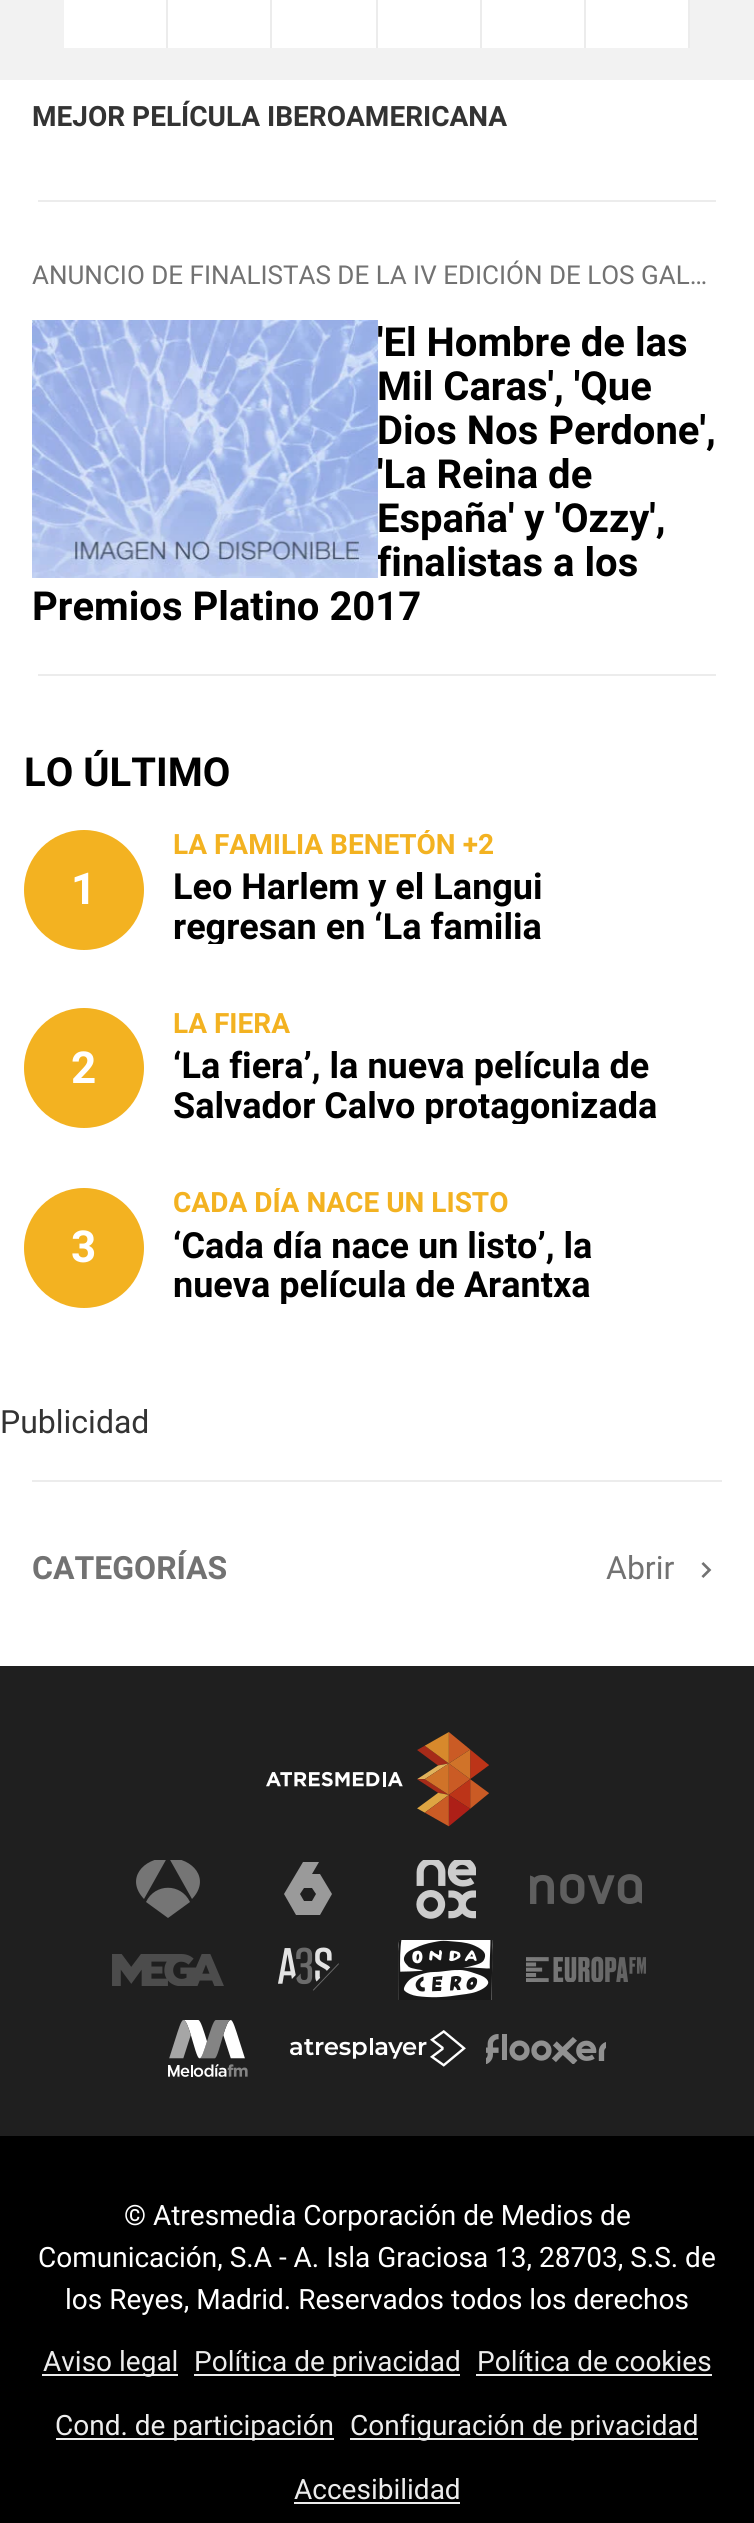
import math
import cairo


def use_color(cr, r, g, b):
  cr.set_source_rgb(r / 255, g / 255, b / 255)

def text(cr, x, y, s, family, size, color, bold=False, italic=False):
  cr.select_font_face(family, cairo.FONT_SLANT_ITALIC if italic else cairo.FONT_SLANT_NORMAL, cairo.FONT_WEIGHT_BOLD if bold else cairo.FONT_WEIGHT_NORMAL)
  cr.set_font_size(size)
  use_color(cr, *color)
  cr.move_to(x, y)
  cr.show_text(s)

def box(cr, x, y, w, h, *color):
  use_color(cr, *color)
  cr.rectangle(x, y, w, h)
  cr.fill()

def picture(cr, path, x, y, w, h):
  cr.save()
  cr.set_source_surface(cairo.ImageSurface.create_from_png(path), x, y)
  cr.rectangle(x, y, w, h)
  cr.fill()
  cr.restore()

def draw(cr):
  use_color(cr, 255, 255, 255)
  cr.paint()
  box(cr, 0, 0, 754, 80, 242, 242, 242)
  box(cr, 64, 0, 102, 48, 255, 255, 255)
  box(cr, 166, 0, 2, 48, 236, 236, 236)
  box(cr, 168, 0, 102, 48, 255, 255, 255)
  box(cr, 270, 0, 2, 48, 236, 236, 236)
  box(cr, 272, 0, 104, 48, 255, 255, 255)
  box(cr, 376, 0, 2, 48, 236, 236, 236)
  box(cr, 378, 0, 102, 48, 255, 255, 255)
  box(cr, 480, 0, 2, 48, 236, 236, 236)
  box(cr, 482, 0, 102, 48, 255, 255, 255)
  box(cr, 584, 0, 2, 48, 236, 236, 236)
  box(cr, 586, 0, 102, 48, 255, 255, 255)
  box(cr, 688, 0, 2, 48, 236, 236, 236)
  box(cr, 38, 200, 678, 2, 236, 236, 236)
  box(cr, 38, 674, 678, 2, 236, 236, 236)
  use_color(cr, 243, 178, 33)
  cr.arc(84, 890, 60, 0, 2 * math.pi)
  cr.fill()
  cr.arc(84, 1068, 60, 0, 2 * math.pi)
  cr.fill()
  cr.arc(84, 1248, 60, 0, 2 * math.pi)
  cr.fill()
  box(cr, 32, 1480, 690, 2, 236, 236, 236)
  picture(cr, "img_02.png", 701, 1562, 11, 16)
  box(cr, 0, 1666, 754, 470, 31, 31, 31)
  picture(cr, "img_03.png", 266, 1732, 223, 95)
  cr.save()
  cr.rectangle(136, 1860, 64, 60)
  cr.clip()
  use_color(cr, 117, 117, 117)
  cr.new_path()
  cr.move_to(167, 1858)
  cr.curve_to(143, 1858, 125, 1879, 144, 1899)
  cr.close_path()
  cr.fill()
  cr.new_path()
  cr.move_to(192, 1899)
  cr.curve_to(211, 1879, 193, 1858, 169, 1858)
  cr.close_path()
  cr.fill()
  cr.restore()
  use_color(cr, 117, 117, 117)
  cr.new_path()
  cr.move_to(190, 1902)
  cr.line_to(168, 1918)
  cr.line_to(146, 1902)
  cr.curve_to(155, 1883, 181, 1883, 190, 1902)
  cr.close_path()
  cr.fill()
  use_color(cr, 154, 154, 154)
  cr.new_path()
  cr.move_to(320, 1874)
  cr.line_to(312, 1874)
  cr.line_to(319, 1862)
  cr.line_to(303, 1862)
  cr.line_to(284, 1894)
  cr.line_to(296, 1915)
  cr.line_to(320, 1915)
  cr.line_to(332, 1894)
  cr.close_path()
  cr.move_to(312, 1901)
  cr.line_to(304, 1901)
  cr.line_to(300, 1894)
  cr.line_to(304, 1888)
  cr.line_to(312, 1888)
  cr.line_to(316, 1894)
  cr.close_path()
  cr.fill()
  picture(cr, "img_04.png", 416, 1860, 60, 59)
  picture(cr, "img_05.png", 530, 1874, 112, 30)
  picture(cr, "img_06.png", 112, 1954, 112, 32)
  picture(cr, "img_07.png", 278, 1947, 61, 44)
  picture(cr, "img_08.png", 398, 1940, 95, 60)
  picture(cr, "img_09.png", 526, 1956, 120, 26)
  picture(cr, "img_10.png", 168, 2020, 80, 57)
  picture(cr, "img_11.png", 290, 2030, 176, 37)
  picture(cr, "img_12.png", 486, 2034, 120, 30)
  box(cr, 0, 2136, 754, 387, 0, 0, 0)
  box(cr, 42, 2374, 136, 2, 236, 236, 236)
  box(cr, 194, 2374, 266, 2, 236, 236, 236)
  box(cr, 476, 2374, 236, 2, 236, 236, 236)
  box(cr, 56, 2438, 278, 2, 236, 236, 236)
  box(cr, 350, 2438, 348, 2, 236, 236, 236)
  box(cr, 294, 2502, 166, 2, 236, 236, 236)
  text(cr, 32, 126, "MEJOR PELÍCULA IBEROAMERICANA", "Roboto", 28, (51, 51, 51), bold=True)
  text(cr, 32, 284, "ANUNCIO DE FINALISTAS DE LA IV EDICIÓN DE LOS GAL…", "Roboto", 26, (114, 114, 114))
  text(cr, 377, 356, "'El Hombre de las", "Roboto", 40, (0, 0, 0), bold=True)
  text(cr, 377, 400, "Mil Caras', 'Que", "Roboto", 40, (0, 0, 0), bold=True)
  text(cr, 377, 444, "Dios Nos Perdone',", "Roboto", 40, (0, 0, 0), bold=True)
  text(cr, 377, 488, "'La Reina de", "Roboto", 40, (0, 0, 0), bold=True)
  text(cr, 377, 532, "España' y 'Ozzy',", "Roboto", 40, (0, 0, 0), bold=True)
  text(cr, 377, 576, "finalistas a los", "Roboto", 40, (0, 0, 0), bold=True)
  picture(cr, "img_01.png", 32, 320, 346, 258)
  text(cr, 32, 620, "Premios Platino 2017", "Roboto", 40, (0, 0, 0), bold=True)
  text(cr, 24, 786, "LO ÚLTIMO", "Roboto", 40, (0, 0, 0), bold=True)
  text(cr, 71, 904, "1", "Roboto", 44, (255, 255, 255), bold=True)
  cr.save()
  cr.rectangle(144, 830, 516, 114)
  cr.clip()
  text(cr, 173, 854, "LA FAMILIA BENETÓN +2", "Roboto", 28, (243, 178, 33), bold=True)
  cr.restore()
  text(cr, 173, 899, "Leo Harlem y el Langui", "Roboto", 36, (0, 0, 0), bold=True)
  cr.save()
  cr.rectangle(172, 868, 488, 76)
  cr.clip()
  text(cr, 173, 939, "regresan en ‘La familia", "Roboto", 36, (0, 0, 0), bold=True)
  cr.restore()
  text(cr, 71, 1083, "2", "Roboto", 44, (255, 255, 255), bold=True)
  text(cr, 173, 1033, "LA FIERA", "Roboto", 28, (243, 178, 33), bold=True)
  text(cr, 173, 1078, "‘La fiera’, la nueva película de", "Roboto", 36, (0, 0, 0), bold=True)
  cr.save()
  cr.rectangle(172, 1046, 488, 78)
  cr.clip()
  text(cr, 173, 1118, "Salvador Calvo protagonizada", "Roboto", 36, (0, 0, 0), bold=True)
  cr.restore()
  text(cr, 71, 1262, "3", "Roboto", 44, (255, 255, 255), bold=True)
  cr.save()
  cr.rectangle(144, 1188, 516, 116)
  cr.clip()
  text(cr, 173, 1212, "CADA DÍA NACE UN LISTO", "Roboto", 28, (243, 178, 33), bold=True)
  cr.restore()
  text(cr, 173, 1258, "‘Cada día nace un listo’, la", "Roboto", 36, (0, 0, 0), bold=True)
  cr.save()
  cr.rectangle(172, 1226, 488, 78)
  cr.clip()
  text(cr, 173, 1297, "nueva película de Arantxa", "Roboto", 36, (0, 0, 0), bold=True)
  cr.restore()
  text(cr, 0, 1433, "Publicidad", "Roboto", 32, (51, 51, 51))
  text(cr, 32, 1579, "CATEGORÍAS", "Roboto", 32, (114, 114, 114), bold=True)
  text(cr, 606, 1579, "Abrir", "Roboto", 32, (114, 114, 114))
  text(cr, 124, 2225, "© Atresmedia Corporación de Medios de", "Roboto", 28, (255, 255, 255))
  text(cr, 38, 2267, "Comunicación, S.A - A. Isla Graciosa 13, 28703, S.S. de", "Roboto", 28, (255, 255, 255))
  text(cr, 65, 2309, "los Reyes, Madrid. Reservados todos los derechos", "Roboto", 28, (255, 255, 255))
  text(cr, 43, 2371, "Aviso legal", "Roboto", 28, (236, 236, 236))
  text(cr, 194, 2371, "Política de privacidad", "Roboto", 28, (236, 236, 236))
  text(cr, 477, 2371, "Política de cookies", "Roboto", 28, (236, 236, 236))
  text(cr, 55, 2435, "Cond. de participación", "Roboto", 28, (236, 236, 236))
  text(cr, 350, 2435, "Configuración de privacidad", "Roboto", 28, (236, 236, 236))
  text(cr, 294, 2499, "Accesibilidad", "Roboto", 28, (236, 236, 236))


surface = cairo.ImageSurface(cairo.FORMAT_RGB24, 754, 2523)
cr = cairo.Context(surface)
options = cairo.FontOptions()
options.set_hint_metrics(cairo.HINT_METRICS_OFF)
options.set_hint_style(cairo.HINT_STYLE_NONE)
cr.set_font_options(options)
cr.set_miter_limit(4)
draw(cr)
surface.write_to_png("out.png")
